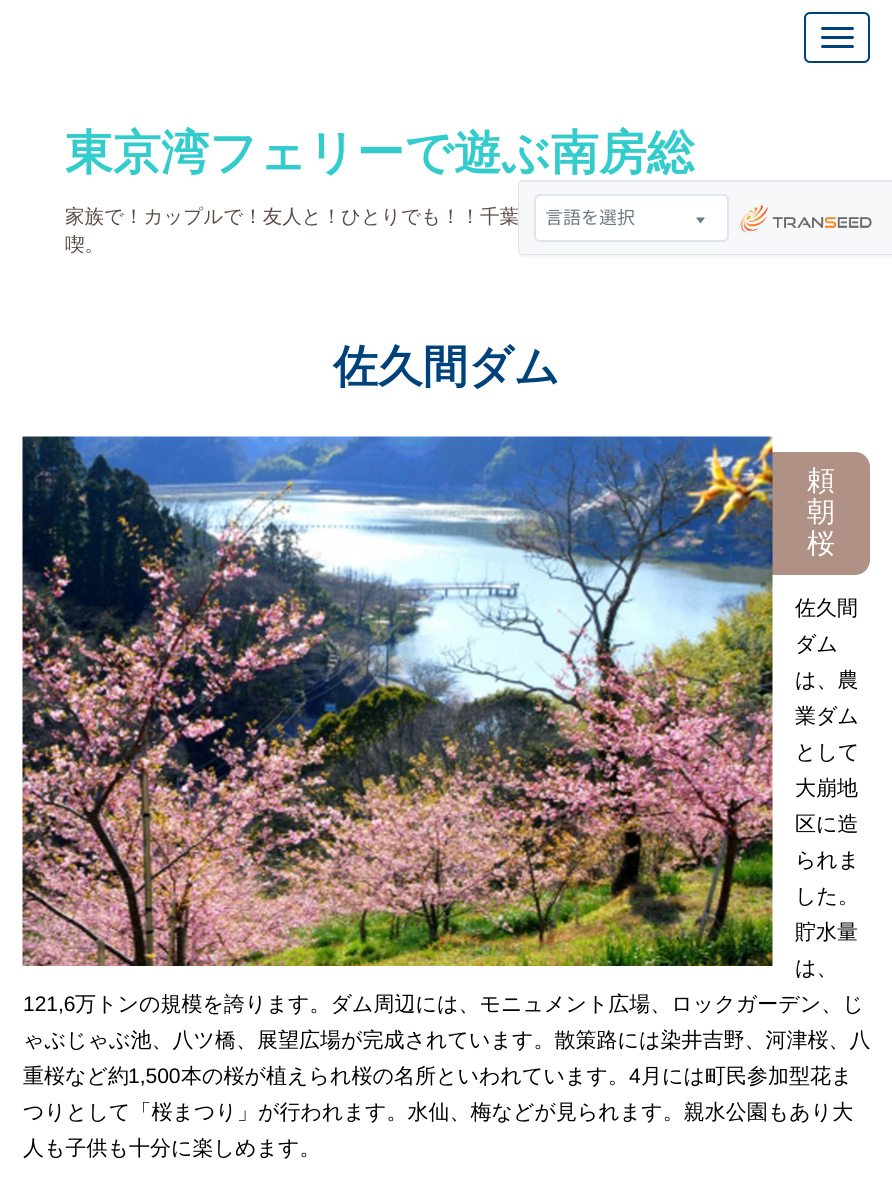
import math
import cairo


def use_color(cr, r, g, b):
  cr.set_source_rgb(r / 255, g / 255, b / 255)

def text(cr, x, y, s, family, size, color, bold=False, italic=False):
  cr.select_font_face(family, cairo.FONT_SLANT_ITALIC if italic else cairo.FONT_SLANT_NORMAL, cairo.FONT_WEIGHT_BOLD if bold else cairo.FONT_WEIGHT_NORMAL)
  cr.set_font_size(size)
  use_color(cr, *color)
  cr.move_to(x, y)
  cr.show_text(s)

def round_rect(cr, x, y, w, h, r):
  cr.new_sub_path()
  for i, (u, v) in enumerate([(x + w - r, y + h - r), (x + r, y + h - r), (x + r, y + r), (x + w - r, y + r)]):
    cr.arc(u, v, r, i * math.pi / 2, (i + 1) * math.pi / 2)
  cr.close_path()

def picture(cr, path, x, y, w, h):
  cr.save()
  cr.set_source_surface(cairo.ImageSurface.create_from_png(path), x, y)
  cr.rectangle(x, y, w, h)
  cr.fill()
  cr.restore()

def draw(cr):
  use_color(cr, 255, 255, 255)
  cr.paint()
  round_rect(cr, 805, 13, 64, 49, 5)
  use_color(cr, 0, 67, 124)
  cr.stroke()
  round_rect(cr, 821, 27, 33, 3, 1.5)
  cr.fill()
  round_rect(cr, 821, 36, 33, 3, 1.5)
  cr.fill()
  round_rect(cr, 821, 45, 33, 3, 1.5)
  cr.fill()
  use_color(cr, 175, 145, 133)
  round_rect(cr, 23, 452, 847, 123, 15)
  cr.fill()
  picture(cr, "img_01.png", 22, 436, 751, 530)
  use_color(cr, 247, 247, 247)
  cr.new_path()
  cr.move_to(518, 253)
  cr.curve_to(518, 255, 520, 258, 523, 258)
  cr.line_to(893, 258)
  cr.line_to(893, 183)
  cr.line_to(892, 183)
  cr.line_to(892, 255)
  cr.line_to(522, 255)
  cr.curve_to(520, 255, 519, 254, 518, 253)
  cr.close_path()
  cr.fill()
  text(cr, 65, 169, "東京湾フェリーで遊ぶ南房総", "WenQuanYi Zen Hei", 48, (51, 204, 204), bold=True)
  text(cr, 65, 223, "家族で！カップルで！友人と！ひとりでも！！千葉", "WenQuanYi Zen Hei Medium", 19.5, (91, 76, 70))
  text(cr, 65, 251, "喫。", "WenQuanYi Zen Hei Medium", 19.5, (91, 76, 70))
  text(cr, 333, 382, "佐久間ダム", "WenQuanYi Zen Hei", 45, (0, 67, 124), bold=True)
  text(cr, 807, 490, "頼", "WenQuanYi Zen Hei Medium", 28, (255, 255, 255))
  text(cr, 807, 521, "朝", "WenQuanYi Zen Hei Medium", 28, (255, 255, 255))
  text(cr, 807, 553, "桜", "WenQuanYi Zen Hei Medium", 28, (255, 255, 255))
  text(cr, 795, 615, "佐久間", "WenQuanYi Zen Hei Medium", 21, (0, 0, 0))
  text(cr, 795, 651, "ダム", "WenQuanYi Zen Hei Medium", 21, (0, 0, 0))
  text(cr, 795, 687, "は、農", "WenQuanYi Zen Hei Medium", 21, (0, 0, 0))
  text(cr, 795, 723, "業ダム", "WenQuanYi Zen Hei Medium", 21, (0, 0, 0))
  text(cr, 795, 759, "として", "WenQuanYi Zen Hei Medium", 21, (0, 0, 0))
  text(cr, 795, 795, "大崩地", "WenQuanYi Zen Hei Medium", 21, (0, 0, 0))
  text(cr, 795, 831, "区に造", "WenQuanYi Zen Hei Medium", 21, (0, 0, 0))
  text(cr, 795, 867, "られま", "WenQuanYi Zen Hei Medium", 21, (0, 0, 0))
  text(cr, 795, 903, "した。", "WenQuanYi Zen Hei Medium", 21, (0, 0, 0))
  text(cr, 795, 939, "貯水量", "WenQuanYi Zen Hei Medium", 21, (0, 0, 0))
  text(cr, 795, 975, "は、", "WenQuanYi Zen Hei Medium", 21, (0, 0, 0))
  text(cr, 23, 1011, "121,6", "Liberation Sans", 21, (0, 0, 0))
  text(cr, 75, 1011, "万トンの規模を誇ります。ダム周辺には、モニュメント広場、ロックガーデン、じ", "WenQuanYi Zen Hei Medium", 21, (0, 0, 0))
  text(cr, 23, 1047, "ゃぶじゃぶ池、八ツ橋、展望広場が完成されています。散策路には染井吉野、河津桜、八", "WenQuanYi Zen Hei Medium", 21, (0, 0, 0))
  text(cr, 23, 1083, "重桜など約", "WenQuanYi Zen Hei Medium", 21, (0, 0, 0))
  text(cr, 128, 1083, "1,500", "Liberation Sans", 21, (0, 0, 0))
  text(cr, 181, 1083, "本の桜が植えられ桜の名所といわれています。", "WenQuanYi Zen Hei Medium", 21, (0, 0, 0))
  text(cr, 629, 1083, "4", "Liberation Sans", 21, (0, 0, 0))
  text(cr, 641, 1083, "月には町民参加型花ま", "WenQuanYi Zen Hei Medium", 21, (0, 0, 0))
  text(cr, 23, 1119, "つりとして「桜まつり」が行われます。水仙、梅などが見られます。親水公園もあり大", "WenQuanYi Zen Hei Medium", 21, (0, 0, 0))
  text(cr, 23, 1155, "人も子供も十分に楽しめます。", "WenQuanYi Zen Hei Medium", 21, (0, 0, 0))
  use_color(cr, 246, 248, 250)
  cr.new_path()
  cr.move_to(523, 180)
  cr.line_to(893, 180)
  cr.line_to(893, 255)
  cr.line_to(523, 255)
  cr.curve_to(520, 255, 518, 253, 518, 250)
  cr.line_to(518, 185)
  cr.curve_to(518, 182, 520, 180, 523, 180)
  cr.close_path()
  cr.fill()
  use_color(cr, 222, 229, 236)
  cr.set_fill_rule(cairo.FILL_RULE_EVEN_ODD)
  cr.new_path()
  cr.move_to(522, 180)
  cr.line_to(892, 180)
  cr.line_to(892, 255)
  cr.line_to(522, 255)
  cr.curve_to(520, 255, 518, 253, 518, 250)
  cr.line_to(518, 184)
  cr.curve_to(518, 182, 520, 180, 522, 180)
  cr.close_path()
  cr.move_to(522, 182)
  cr.line_to(892, 182)
  cr.line_to(892, 254)
  cr.line_to(522, 254)
  cr.curve_to(520, 254, 519, 252, 519, 250)
  cr.line_to(519, 184)
  cr.curve_to(519, 183, 520, 182, 522, 182)
  cr.close_path()
  cr.fill()
  use_color(cr, 255, 255, 255)
  round_rect(cr, 535, 195, 193, 46, 5)
  cr.fill_preserve()
  use_color(cr, 222, 229, 236)
  cr.stroke()
  text(cr, 545, 224, "言語を選択", "Noto Sans JP", 18, (108, 121, 132))
  cr.set_fill_rule(cairo.FILL_RULE_WINDING)
  cr.new_path()
  cr.move_to(696, 217.5)
  cr.line_to(705, 217.5)
  cr.line_to(700.5, 223.5)
  cr.close_path()
  cr.fill()
  picture(cr, "img_02.png", 739, 205, 133, 28)


surface = cairo.ImageSurface(cairo.FORMAT_RGB24, 892, 1179)
cr = cairo.Context(surface)
options = cairo.FontOptions()
options.set_hint_metrics(cairo.HINT_METRICS_OFF)
options.set_hint_style(cairo.HINT_STYLE_NONE)
cr.set_font_options(options)
cr.set_miter_limit(4)
draw(cr)
surface.write_to_png("out.png")
